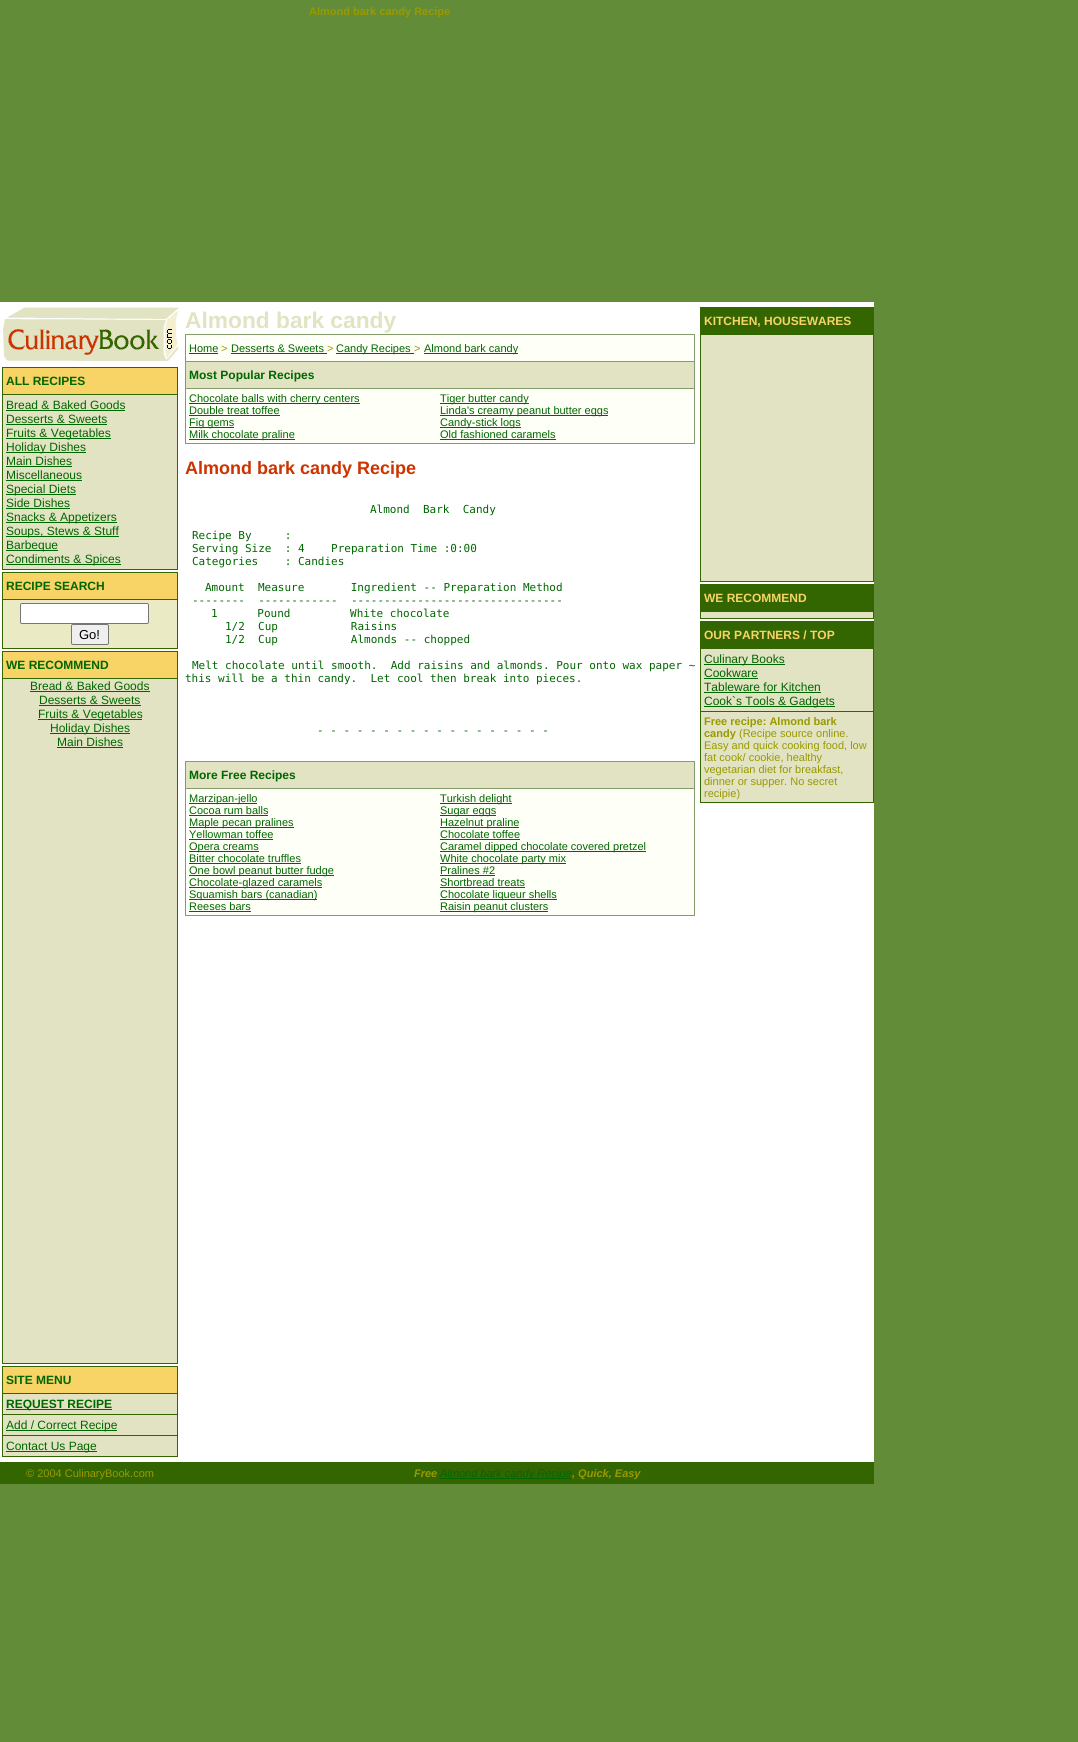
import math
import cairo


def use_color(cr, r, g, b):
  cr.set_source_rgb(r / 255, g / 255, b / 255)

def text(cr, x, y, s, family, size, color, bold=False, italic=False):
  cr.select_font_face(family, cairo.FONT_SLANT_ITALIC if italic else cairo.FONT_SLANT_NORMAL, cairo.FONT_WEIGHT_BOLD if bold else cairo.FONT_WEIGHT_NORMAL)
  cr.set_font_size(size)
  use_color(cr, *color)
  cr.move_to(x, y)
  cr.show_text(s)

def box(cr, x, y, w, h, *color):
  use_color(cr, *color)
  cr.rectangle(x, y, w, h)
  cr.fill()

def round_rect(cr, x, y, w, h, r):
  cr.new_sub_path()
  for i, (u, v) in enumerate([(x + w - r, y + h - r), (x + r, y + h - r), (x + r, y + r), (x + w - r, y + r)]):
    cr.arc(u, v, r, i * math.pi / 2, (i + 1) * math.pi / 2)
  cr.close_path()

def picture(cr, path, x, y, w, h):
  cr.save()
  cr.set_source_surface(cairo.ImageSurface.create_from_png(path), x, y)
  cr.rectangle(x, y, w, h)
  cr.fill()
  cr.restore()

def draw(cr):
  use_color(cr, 98, 140, 55)
  cr.paint()
  box(cr, 0, 302, 874, 1160, 255, 255, 255)
  picture(cr, "img_01.png", 3, 307, 176, 55)
  box(cr, 2, 367, 176, 203, 51, 102, 0)
  box(cr, 3, 368, 174, 26, 248, 211, 101)
  box(cr, 3, 395, 174, 174, 225, 227, 194)
  box(cr, 6, 410, 119, 1, 0, 102, 0)
  box(cr, 6, 424, 101, 1, 0, 102, 0)
  box(cr, 6, 438, 105, 1, 0, 102, 0)
  box(cr, 6, 452, 80, 1, 0, 102, 0)
  box(cr, 6, 466, 66, 1, 0, 102, 0)
  box(cr, 6, 480, 76, 1, 0, 102, 0)
  box(cr, 6, 494, 70, 1, 0, 102, 0)
  box(cr, 6, 508, 64, 1, 0, 102, 0)
  box(cr, 6, 522, 111, 1, 0, 102, 0)
  box(cr, 6, 536, 113, 1, 0, 102, 0)
  box(cr, 6, 550, 52, 1, 0, 102, 0)
  box(cr, 6, 564, 115, 1, 0, 102, 0)
  box(cr, 2, 572, 176, 77, 51, 102, 0)
  box(cr, 3, 573, 174, 26, 248, 211, 101)
  box(cr, 3, 600, 174, 48, 234, 234, 197)
  use_color(cr, 255, 255, 255)
  round_rect(cr, 20.5, 603.5, 128, 20, 1.5)
  cr.fill_preserve()
  use_color(cr, 118, 118, 118)
  cr.set_line_width(1)
  cr.stroke()
  use_color(cr, 239, 239, 239)
  round_rect(cr, 71.5, 624.5, 37, 20, 1.5)
  cr.fill_preserve()
  use_color(cr, 118, 118, 118)
  cr.stroke()
  box(cr, 2, 651, 176, 713, 51, 102, 0)
  box(cr, 3, 652, 174, 26, 248, 211, 101)
  box(cr, 3, 679, 174, 684, 225, 227, 194)
  box(cr, 30, 691, 120, 1, 0, 102, 0)
  box(cr, 39, 705, 102, 1, 0, 102, 0)
  box(cr, 38, 719, 104, 1, 0, 102, 0)
  box(cr, 50, 733, 80, 1, 0, 102, 0)
  box(cr, 57, 747, 66, 1, 0, 102, 0)
  box(cr, 185, 334, 510, 110, 132, 156, 107)
  box(cr, 186, 335, 508, 26, 254, 255, 246)
  box(cr, 189, 353, 29, 1, 0, 102, 0)
  box(cr, 231, 353, 96, 1, 0, 102, 0)
  box(cr, 336, 353, 78, 1, 0, 102, 0)
  box(cr, 424, 353, 94, 1, 0, 102, 0)
  box(cr, 186, 362, 508, 26, 225, 227, 194)
  box(cr, 186, 389, 508, 54, 254, 255, 246)
  box(cr, 189, 403, 171, 1, 0, 102, 0)
  box(cr, 189, 415, 91, 1, 0, 102, 0)
  box(cr, 189, 427, 45, 1, 0, 102, 0)
  box(cr, 189, 439, 106, 1, 0, 102, 0)
  box(cr, 440, 403, 89, 1, 0, 102, 0)
  box(cr, 440, 415, 168, 1, 0, 102, 0)
  box(cr, 440, 427, 81, 1, 0, 102, 0)
  box(cr, 440, 439, 116, 1, 0, 102, 0)
  box(cr, 185, 761, 510, 155, 132, 156, 107)
  box(cr, 186, 762, 508, 26, 225, 227, 194)
  box(cr, 186, 789, 508, 126, 254, 255, 246)
  box(cr, 189, 803, 68, 1, 0, 102, 0)
  box(cr, 189, 815, 79, 1, 0, 102, 0)
  box(cr, 189, 827, 105, 1, 0, 102, 0)
  box(cr, 189, 839, 84, 1, 0, 102, 0)
  box(cr, 189, 851, 70, 1, 0, 102, 0)
  box(cr, 189, 863, 112, 1, 0, 102, 0)
  box(cr, 189, 875, 145, 1, 0, 102, 0)
  box(cr, 189, 887, 133, 1, 0, 102, 0)
  box(cr, 189, 899, 128, 1, 0, 102, 0)
  box(cr, 189, 911, 62, 1, 0, 102, 0)
  box(cr, 440, 803, 72, 1, 0, 102, 0)
  box(cr, 440, 815, 56, 1, 0, 102, 0)
  box(cr, 440, 827, 79, 1, 0, 102, 0)
  box(cr, 440, 839, 80, 1, 0, 102, 0)
  box(cr, 440, 851, 206, 1, 0, 102, 0)
  box(cr, 440, 863, 126, 1, 0, 102, 0)
  box(cr, 440, 875, 55, 1, 0, 102, 0)
  box(cr, 440, 887, 85, 1, 0, 102, 0)
  box(cr, 440, 899, 117, 1, 0, 102, 0)
  box(cr, 440, 911, 108, 1, 0, 102, 0)
  box(cr, 700, 307, 174, 275, 51, 102, 0)
  box(cr, 701, 335, 172, 246, 225, 227, 194)
  box(cr, 700, 584, 174, 35, 51, 102, 0)
  box(cr, 701, 612, 172, 6, 225, 227, 194)
  box(cr, 700, 621, 174, 182, 51, 102, 0)
  box(cr, 701, 649, 172, 62, 225, 227, 194)
  box(cr, 704, 664, 81, 1, 0, 102, 0)
  box(cr, 704, 678, 54, 1, 0, 102, 0)
  box(cr, 704, 692, 117, 1, 0, 102, 0)
  box(cr, 704, 706, 131, 1, 0, 102, 0)
  box(cr, 701, 712, 172, 90, 225, 227, 194)
  box(cr, 2, 1366, 176, 91, 51, 102, 0)
  box(cr, 3, 1367, 174, 26, 248, 211, 101)
  box(cr, 3, 1394, 174, 20, 225, 227, 194)
  box(cr, 6, 1409, 106, 1, 0, 102, 0)
  box(cr, 3, 1415, 174, 20, 225, 227, 194)
  box(cr, 6, 1430, 111, 1, 0, 102, 0)
  box(cr, 3, 1436, 174, 20, 225, 227, 194)
  box(cr, 6, 1451, 91, 1, 0, 102, 0)
  box(cr, 0, 1462, 874, 22, 51, 102, 0)
  box(cr, 440, 1478, 132, 1, 0, 102, 0)
  text(cr, 309, 15, "Almond bark candy Recipe", "Liberation Sans", 11, (153, 153, 0), bold=True)
  text(cr, 6, 385, "ALL RECIPES", "Liberation Sans", 12, (0, 102, 0), bold=True)
  text(cr, 6, 409, "Bread & Baked Goods", "Liberation Sans", 12, (0, 102, 0))
  text(cr, 6, 423, "Desserts & Sweets", "Liberation Sans", 12, (0, 102, 0))
  text(cr, 6, 437, "Fruits & Vegetables", "Liberation Sans", 12, (0, 102, 0))
  text(cr, 6, 451, "Holiday Dishes", "Liberation Sans", 12, (0, 102, 0))
  text(cr, 6, 465, "Main Dishes", "Liberation Sans", 12, (0, 102, 0))
  text(cr, 6, 479, "Miscellaneous", "Liberation Sans", 12, (0, 102, 0))
  text(cr, 6, 493, "Special Diets", "Liberation Sans", 12, (0, 102, 0))
  text(cr, 6, 507, "Side Dishes", "Liberation Sans", 12, (0, 102, 0))
  text(cr, 6, 521, "Snacks & Appetizers", "Liberation Sans", 12, (0, 102, 0))
  text(cr, 6, 535, "Soups, Stews & Stuff", "Liberation Sans", 12, (0, 102, 0))
  text(cr, 6, 549, "Barbeque", "Liberation Sans", 12, (0, 102, 0))
  text(cr, 6, 563, "Condiments & Spices", "Liberation Sans", 12, (0, 102, 0))
  text(cr, 6, 590, "RECIPE SEARCH", "Liberation Sans", 12, (0, 102, 0), bold=True)
  text(cr, 79, 639, "Go!", "Liberation Sans", 13, (0, 0, 0))
  text(cr, 6, 669, "WE RECOMMEND", "Liberation Sans", 12, (0, 102, 0), bold=True)
  text(cr, 30, 690, "Bread & Baked Goods", "Liberation Sans", 12, (0, 102, 0))
  text(cr, 39, 704, "Desserts & Sweets", "Liberation Sans", 12, (0, 102, 0))
  text(cr, 38, 718, "Fruits & Vegetables", "Liberation Sans", 12, (0, 102, 0))
  text(cr, 50, 732, "Holiday Dishes", "Liberation Sans", 12, (0, 102, 0))
  text(cr, 57, 746, "Main Dishes", "Liberation Sans", 12, (0, 102, 0))
  text(cr, 185, 328, "Almond bark candy", "Liberation Sans", 22.75, (225, 227, 194), bold=True)
  text(cr, 189, 352, "Home", "Liberation Sans", 11, (0, 102, 0))
  text(cr, 221, 352, ">", "Liberation Sans", 11, (153, 153, 0))
  text(cr, 231, 352, "Desserts & Sweets", "Liberation Sans", 11, (0, 102, 0))
  text(cr, 327, 352, ">", "Liberation Sans", 11, (153, 153, 0))
  text(cr, 336, 352, "Candy Recipes", "Liberation Sans", 11, (0, 102, 0))
  text(cr, 414, 352, ">", "Liberation Sans", 11, (153, 153, 0))
  text(cr, 424, 352, "Almond bark candy", "Liberation Sans", 11, (0, 102, 0))
  text(cr, 189, 379, "Most Popular Recipes", "Liberation Sans", 12, (0, 102, 0), bold=True)
  text(cr, 189, 402, "Chocolate balls with cherry centers", "Liberation Sans", 11, (0, 102, 0))
  text(cr, 189, 414, "Double treat toffee", "Liberation Sans", 11, (0, 102, 0))
  text(cr, 189, 426, "Fig gems", "Liberation Sans", 11, (0, 102, 0))
  text(cr, 189, 438, "Milk chocolate praline", "Liberation Sans", 11, (0, 102, 0))
  text(cr, 440, 402, "Tiger butter candy", "Liberation Sans", 11, (0, 102, 0))
  text(cr, 440, 414, "Linda's creamy peanut butter eggs", "Liberation Sans", 11, (0, 102, 0))
  text(cr, 440, 426, "Candy-stick logs", "Liberation Sans", 11, (0, 102, 0))
  text(cr, 440, 438, "Old fashioned caramels", "Liberation Sans", 11, (0, 102, 0))
  text(cr, 185, 474, "Almond bark candy Recipe", "Liberation Sans", 18, (204, 51, 0), bold=True)
  text(cr, 370, 513, "Almond  Bark  Candy", "DejaVu Sans Mono", 11, (0, 102, 0))
  text(cr, 192, 539, "Recipe By     :", "DejaVu Sans Mono", 11, (0, 102, 0))
  text(cr, 192, 552, "Serving Size  : 4    Preparation Time :0:00", "DejaVu Sans Mono", 11, (0, 102, 0))
  text(cr, 192, 565, "Categories    : Candies", "DejaVu Sans Mono", 11, (0, 102, 0))
  text(cr, 205, 591, "Amount  Measure       Ingredient -- Preparation Method", "DejaVu Sans Mono", 11, (0, 102, 0))
  text(cr, 192, 604, "--------  ------------  --------------------------------", "DejaVu Sans Mono", 11, (0, 102, 0))
  text(cr, 211, 617, "1      Pound         White chocolate", "DejaVu Sans Mono", 11, (0, 102, 0))
  text(cr, 225, 630, "1/2  Cup           Raisins", "DejaVu Sans Mono", 11, (0, 102, 0))
  text(cr, 225, 643, "1/2  Cup           Almonds -- chopped", "DejaVu Sans Mono", 11, (0, 102, 0))
  text(cr, 192, 669, "Melt chocolate until smooth.  Add raisins and almonds. Pour onto wax paper ~", "DejaVu Sans Mono", 11, (0, 102, 0))
  text(cr, 185, 682, "this will be a thin candy.  Let cool then break into pieces.", "DejaVu Sans Mono", 11, (0, 102, 0))
  text(cr, 317, 734, "- - - - - - - - - - - - - - - - - -", "DejaVu Sans Mono", 11, (0, 102, 0))
  text(cr, 189, 779, "More Free Recipes", "Liberation Sans", 12, (0, 102, 0), bold=True)
  text(cr, 189, 802, "Marzipan-jello", "Liberation Sans", 11, (0, 102, 0))
  text(cr, 189, 814, "Cocoa rum balls", "Liberation Sans", 11, (0, 102, 0))
  text(cr, 189, 826, "Maple pecan pralines", "Liberation Sans", 11, (0, 102, 0))
  text(cr, 189, 838, "Yellowman toffee", "Liberation Sans", 11, (0, 102, 0))
  text(cr, 189, 850, "Opera creams", "Liberation Sans", 11, (0, 102, 0))
  text(cr, 189, 862, "Bitter chocolate truffles", "Liberation Sans", 11, (0, 102, 0))
  text(cr, 189, 874, "One bowl peanut butter fudge", "Liberation Sans", 11, (0, 102, 0))
  text(cr, 189, 886, "Chocolate-glazed caramels", "Liberation Sans", 11, (0, 102, 0))
  text(cr, 189, 898, "Squamish bars (canadian)", "Liberation Sans", 11, (0, 102, 0))
  text(cr, 189, 910, "Reeses bars", "Liberation Sans", 11, (0, 102, 0))
  text(cr, 440, 802, "Turkish delight", "Liberation Sans", 11, (0, 102, 0))
  text(cr, 440, 814, "Sugar eggs", "Liberation Sans", 11, (0, 102, 0))
  text(cr, 440, 826, "Hazelnut praline", "Liberation Sans", 11, (0, 102, 0))
  text(cr, 440, 838, "Chocolate toffee", "Liberation Sans", 11, (0, 102, 0))
  text(cr, 440, 850, "Caramel dipped chocolate covered pretzel", "Liberation Sans", 11, (0, 102, 0))
  text(cr, 440, 862, "White chocolate party mix", "Liberation Sans", 11, (0, 102, 0))
  text(cr, 440, 874, "Pralines #2", "Liberation Sans", 11, (0, 102, 0))
  text(cr, 440, 886, "Shortbread treats", "Liberation Sans", 11, (0, 102, 0))
  text(cr, 440, 898, "Chocolate liqueur shells", "Liberation Sans", 11, (0, 102, 0))
  text(cr, 440, 910, "Raisin peanut clusters", "Liberation Sans", 11, (0, 102, 0))
  text(cr, 704, 325, "KITCHEN, HOUSEWARES", "Liberation Sans", 12, (248, 211, 101), bold=True)
  text(cr, 704, 602, "WE RECOMMEND", "Liberation Sans", 12, (248, 211, 101), bold=True)
  text(cr, 704, 639, "OUR PARTNERS / TOP", "Liberation Sans", 12, (248, 211, 101), bold=True)
  text(cr, 704, 663, "Culinary Books", "Liberation Sans", 12, (0, 102, 0))
  text(cr, 704, 677, "Cookware", "Liberation Sans", 12, (0, 102, 0))
  text(cr, 704, 691, "Tableware for Kitchen", "Liberation Sans", 12, (0, 102, 0))
  text(cr, 704, 705, "Cook`s Tools & Gadgets", "Liberation Sans", 12, (0, 102, 0))
  text(cr, 704, 725, "Free recipe: Almond bark", "Liberation Sans", 11, (153, 153, 0), bold=True)
  text(cr, 704, 737, "candy", "Liberation Sans", 11, (153, 153, 0), bold=True)
  text(cr, 739, 737, "(Recipe source online.", "Liberation Sans", 11, (153, 153, 0))
  text(cr, 704, 749, "Easy and quick cooking food, low", "Liberation Sans", 11, (153, 153, 0))
  text(cr, 704, 761, "fat cook/ cookie, healthy", "Liberation Sans", 11, (153, 153, 0))
  text(cr, 704, 773, "vegetarian diet for breakfast,", "Liberation Sans", 11, (153, 153, 0))
  text(cr, 704, 785, "dinner or supper. No secret", "Liberation Sans", 11, (153, 153, 0))
  text(cr, 704, 797, "recipie)", "Liberation Sans", 11, (153, 153, 0))
  text(cr, 6, 1384, "SITE MENU", "Liberation Sans", 12, (0, 102, 0), bold=True)
  text(cr, 6, 1408, "REQUEST RECIPE", "Liberation Sans", 12, (0, 102, 0), bold=True)
  text(cr, 6, 1429, "Add / Correct Recipe", "Liberation Sans", 12, (0, 102, 0))
  text(cr, 6, 1450, "Contact Us Page", "Liberation Sans", 12, (0, 102, 0))
  text(cr, 26, 1477, "© 2004 CulinaryBook.com", "Liberation Sans", 11, (153, 153, 0))
  text(cr, 414, 1477, "Free", "Liberation Sans", 11, (153, 153, 0), bold=True, italic=True)
  text(cr, 440, 1477, "Almond bark candy Recipe", "Liberation Sans", 11, (0, 102, 0), italic=True)
  text(cr, 572, 1477, ", Quick, Easy", "Liberation Sans", 11, (153, 153, 0), bold=True, italic=True)


surface = cairo.ImageSurface(cairo.FORMAT_RGB24, 1078, 1742)
cr = cairo.Context(surface)
options = cairo.FontOptions()
options.set_hint_metrics(cairo.HINT_METRICS_OFF)
options.set_hint_style(cairo.HINT_STYLE_NONE)
cr.set_font_options(options)
cr.set_miter_limit(4)
draw(cr)
surface.write_to_png("out.png")
